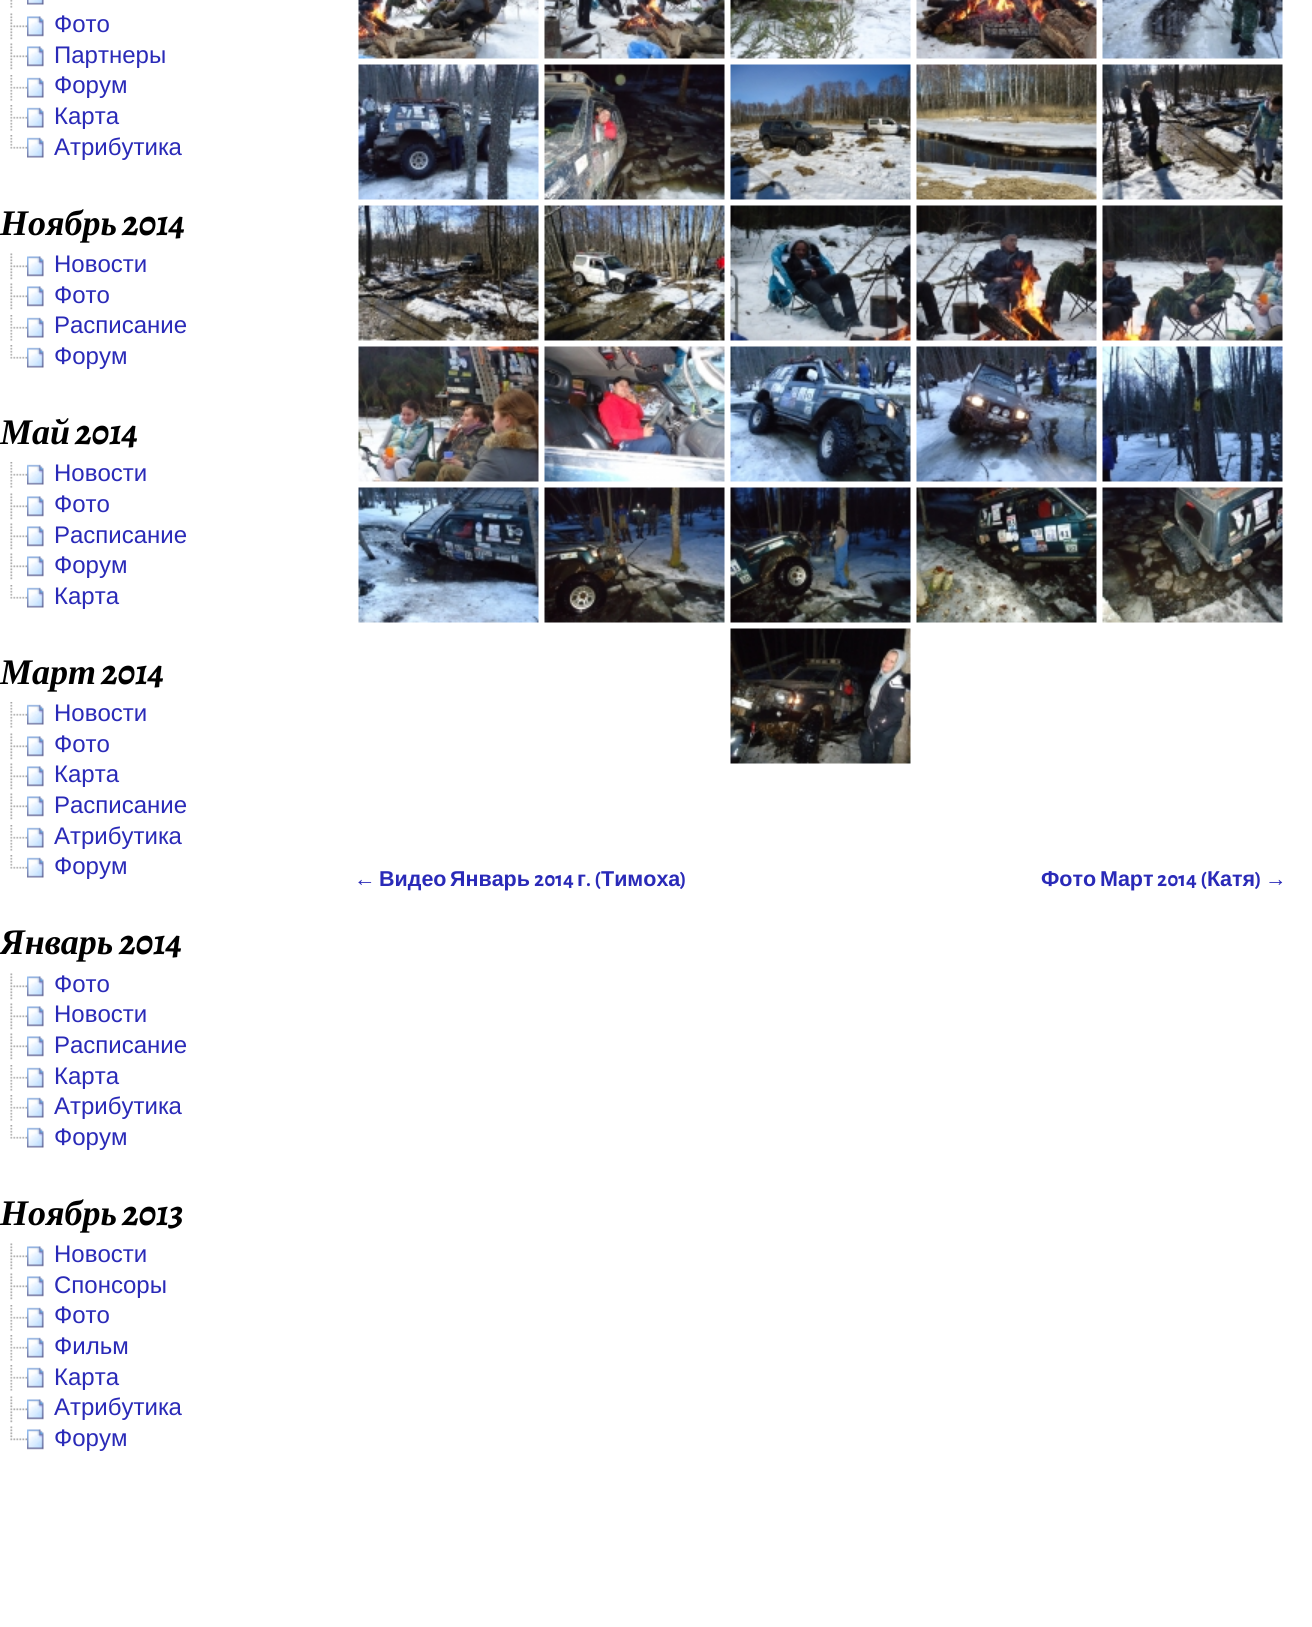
import math
import cairo


def use_color(cr, r, g, b):
  cr.set_source_rgb(r / 255, g / 255, b / 255)

def text(cr, x, y, s, family, size, color, bold=False, italic=False):
  cr.select_font_face(family, cairo.FONT_SLANT_ITALIC if italic else cairo.FONT_SLANT_NORMAL, cairo.FONT_WEIGHT_BOLD if bold else cairo.FONT_WEIGHT_NORMAL)
  cr.set_font_size(size)
  use_color(cr, *color)
  cr.move_to(x, y)
  cr.show_text(s)

def picture(cr, path, x, y, w, h):
  cr.save()
  cr.set_source_surface(cairo.ImageSurface.create_from_png(path), x, y)
  cr.rectangle(x, y, w, h)
  cr.fill()
  cr.restore()

def draw(cr):
  use_color(cr, 255, 255, 255)
  cr.paint()
  picture(cr, "img_01.png", 10, 0, 3, 8)
  picture(cr, "img_02.png", 27, 0, 17, 5)
  picture(cr, "img_03.png", 10, 13, 17, 27)
  picture(cr, "img_04.png", 27, 16, 17, 21)
  picture(cr, "img_03.png", 10, 43, 17, 27)
  picture(cr, "img_04.png", 27, 46, 17, 21)
  picture(cr, "img_05.png", 10, 75, 17, 26)
  picture(cr, "img_06.png", 27, 77, 17, 21)
  picture(cr, "img_05.png", 10, 105, 17, 26)
  picture(cr, "img_06.png", 27, 107, 17, 21)
  picture(cr, "img_07.png", 10, 135, 17, 14)
  picture(cr, "img_06.png", 27, 137, 17, 21)
  picture(cr, "img_03.png", 10, 253, 17, 27)
  picture(cr, "img_04.png", 27, 256, 17, 21)
  picture(cr, "img_03.png", 10, 283, 17, 27)
  picture(cr, "img_04.png", 27, 286, 17, 21)
  picture(cr, "img_05.png", 10, 315, 17, 26)
  picture(cr, "img_06.png", 27, 317, 17, 21)
  picture(cr, "img_07.png", 10, 345, 17, 14)
  picture(cr, "img_06.png", 27, 347, 17, 21)
  picture(cr, "img_05.png", 10, 462, 17, 26)
  picture(cr, "img_06.png", 27, 464, 17, 21)
  picture(cr, "img_03.png", 10, 493, 17, 27)
  picture(cr, "img_04.png", 27, 496, 17, 21)
  picture(cr, "img_03.png", 10, 523, 17, 27)
  picture(cr, "img_04.png", 27, 526, 17, 21)
  picture(cr, "img_03.png", 10, 553, 17, 27)
  picture(cr, "img_04.png", 27, 556, 17, 21)
  picture(cr, "img_07.png", 10, 585, 17, 14)
  picture(cr, "img_06.png", 27, 587, 17, 21)
  picture(cr, "img_05.png", 10, 702, 17, 26)
  picture(cr, "img_06.png", 27, 704, 17, 21)
  picture(cr, "img_03.png", 10, 733, 17, 27)
  picture(cr, "img_04.png", 27, 736, 17, 21)
  picture(cr, "img_03.png", 10, 763, 17, 27)
  picture(cr, "img_04.png", 27, 766, 17, 21)
  picture(cr, "img_03.png", 10, 793, 17, 27)
  picture(cr, "img_04.png", 27, 796, 17, 21)
  picture(cr, "img_05.png", 10, 825, 17, 26)
  picture(cr, "img_06.png", 27, 827, 17, 21)
  picture(cr, "img_07.png", 10, 855, 17, 14)
  picture(cr, "img_06.png", 27, 857, 17, 21)
  picture(cr, "img_03.png", 10, 973, 17, 27)
  picture(cr, "img_04.png", 27, 976, 17, 21)
  picture(cr, "img_03.png", 10, 1003, 17, 27)
  picture(cr, "img_04.png", 27, 1006, 17, 21)
  picture(cr, "img_03.png", 10, 1033, 17, 27)
  picture(cr, "img_04.png", 27, 1036, 17, 21)
  picture(cr, "img_05.png", 10, 1065, 17, 26)
  picture(cr, "img_06.png", 27, 1067, 17, 21)
  picture(cr, "img_05.png", 10, 1095, 17, 26)
  picture(cr, "img_06.png", 27, 1097, 17, 21)
  picture(cr, "img_07.png", 10, 1125, 17, 14)
  picture(cr, "img_06.png", 27, 1127, 17, 21)
  picture(cr, "img_03.png", 10, 1243, 17, 27)
  picture(cr, "img_04.png", 27, 1246, 17, 21)
  picture(cr, "img_03.png", 10, 1273, 17, 27)
  picture(cr, "img_04.png", 27, 1276, 17, 21)
  picture(cr, "img_05.png", 10, 1305, 17, 26)
  picture(cr, "img_06.png", 27, 1307, 17, 21)
  picture(cr, "img_05.png", 10, 1335, 17, 26)
  picture(cr, "img_06.png", 27, 1337, 17, 21)
  picture(cr, "img_05.png", 10, 1365, 17, 26)
  picture(cr, "img_06.png", 27, 1367, 17, 21)
  picture(cr, "img_03.png", 10, 1396, 17, 27)
  picture(cr, "img_04.png", 27, 1399, 17, 21)
  picture(cr, "img_08.png", 10, 1426, 17, 15)
  picture(cr, "img_04.png", 27, 1429, 17, 21)
  picture(cr, "img_09.png", 358, 0, 181, 59)
  picture(cr, "img_10.png", 544, 0, 181, 59)
  picture(cr, "img_11.png", 730, 0, 181, 59)
  picture(cr, "img_12.png", 916, 0, 181, 59)
  picture(cr, "img_13.png", 1102, 0, 181, 59)
  picture(cr, "img_14.png", 358, 64, 181, 136)
  picture(cr, "img_15.png", 544, 64, 181, 136)
  picture(cr, "img_16.png", 730, 64, 181, 136)
  picture(cr, "img_17.png", 916, 64, 181, 136)
  picture(cr, "img_18.png", 1102, 64, 181, 136)
  picture(cr, "img_19.png", 358, 205, 181, 136)
  picture(cr, "img_20.png", 544, 205, 181, 136)
  picture(cr, "img_21.png", 730, 205, 181, 136)
  picture(cr, "img_22.png", 916, 205, 181, 136)
  picture(cr, "img_23.png", 1102, 205, 181, 136)
  picture(cr, "img_24.png", 358, 346, 181, 136)
  picture(cr, "img_25.png", 544, 346, 181, 136)
  picture(cr, "img_26.png", 730, 346, 181, 136)
  picture(cr, "img_27.png", 916, 346, 181, 136)
  picture(cr, "img_28.png", 1102, 346, 181, 136)
  picture(cr, "img_29.png", 358, 487, 181, 136)
  picture(cr, "img_30.png", 544, 487, 181, 136)
  picture(cr, "img_31.png", 730, 487, 181, 136)
  picture(cr, "img_32.png", 916, 487, 181, 136)
  picture(cr, "img_33.png", 1102, 487, 181, 136)
  picture(cr, "img_34.png", 730, 628, 181, 136)
  text(cr, 54, 32, "Фото", "Liberation Sans", 24, (42, 42, 184))
  text(cr, 54, 63, "Партнеры", "Liberation Sans", 24, (42, 42, 184))
  text(cr, 54, 93, "Форум", "Liberation Sans", 24, (42, 42, 184))
  text(cr, 54, 124, "Карта", "Liberation Sans", 24, (42, 42, 184))
  text(cr, 54, 155, "Атрибутика", "Liberation Sans", 24, (42, 42, 184))
  text(cr, 0, 235, "Ноябрь", "Liberation Serif", 36, (0, 0, 0), bold=True, italic=True)
  text(cr, 122, 235, "2014", "Alegreya", 36, (0, 0, 0), bold=True, italic=True)
  text(cr, 54, 272, "Новости", "Liberation Sans", 24, (42, 42, 184))
  text(cr, 54, 303, "Фото", "Liberation Sans", 24, (42, 42, 184))
  text(cr, 54, 333, "Расписание", "Liberation Sans", 24, (42, 42, 184))
  text(cr, 54, 364, "Форум", "Liberation Sans", 24, (42, 42, 184))
  text(cr, 0, 444, "Май", "Liberation Serif", 36, (0, 0, 0), bold=True, italic=True)
  text(cr, 75, 444, "2014", "Alegreya", 36, (0, 0, 0), bold=True, italic=True)
  text(cr, 54, 481, "Новости", "Liberation Sans", 24, (42, 42, 184))
  text(cr, 54, 512, "Фото", "Liberation Sans", 24, (42, 42, 184))
  text(cr, 54, 543, "Расписание", "Liberation Sans", 24, (42, 42, 184))
  text(cr, 54, 573, "Форум", "Liberation Sans", 24, (42, 42, 184))
  text(cr, 54, 604, "Карта", "Liberation Sans", 24, (42, 42, 184))
  text(cr, 0, 684, "Март", "Liberation Serif", 36, (0, 0, 0), bold=True, italic=True)
  text(cr, 101, 684, "2014", "Alegreya", 36, (0, 0, 0), bold=True, italic=True)
  text(cr, 54, 721, "Новости", "Liberation Sans", 24, (42, 42, 184))
  text(cr, 54, 752, "Фото", "Liberation Sans", 24, (42, 42, 184))
  text(cr, 54, 782, "Карта", "Liberation Sans", 24, (42, 42, 184))
  text(cr, 54, 813, "Расписание", "Liberation Sans", 24, (42, 42, 184))
  text(cr, 54, 844, "Атрибутика", "Liberation Sans", 24, (42, 42, 184))
  text(cr, 54, 874, "Форум", "Liberation Sans", 24, (42, 42, 184))
  text(cr, 0, 954, "Январь", "Liberation Serif", 36, (0, 0, 0), bold=True, italic=True)
  text(cr, 119, 954, "2014", "Alegreya", 36, (0, 0, 0), bold=True, italic=True)
  text(cr, 54, 992, "Фото", "Liberation Sans", 24, (42, 42, 184))
  text(cr, 54, 1022, "Новости", "Liberation Sans", 24, (42, 42, 184))
  text(cr, 54, 1053, "Расписание", "Liberation Sans", 24, (42, 42, 184))
  text(cr, 54, 1084, "Карта", "Liberation Sans", 24, (42, 42, 184))
  text(cr, 54, 1114, "Атрибутика", "Liberation Sans", 24, (42, 42, 184))
  text(cr, 54, 1145, "Форум", "Liberation Sans", 24, (42, 42, 184))
  text(cr, 0, 1225, "Ноябрь", "Liberation Serif", 36, (0, 0, 0), bold=True, italic=True)
  text(cr, 122, 1225, "2013", "Alegreya", 36, (0, 0, 0), bold=True, italic=True)
  text(cr, 54, 1262, "Новости", "Liberation Sans", 24, (42, 42, 184))
  text(cr, 54, 1293, "Спонсоры", "Liberation Sans", 24, (42, 42, 184))
  text(cr, 54, 1323, "Фото", "Liberation Sans", 24, (42, 42, 184))
  text(cr, 54, 1354, "Фильм", "Liberation Sans", 24, (42, 42, 184))
  text(cr, 54, 1385, "Карта", "Liberation Sans", 24, (42, 42, 184))
  text(cr, 54, 1415, "Атрибутика", "Liberation Sans", 24, (42, 42, 184))
  text(cr, 54, 1446, "Форум", "Liberation Sans", 24, (42, 42, 184))
  text(cr, 354, 886, "←", "Liberation Sans", 21.5, (42, 42, 184))
  text(cr, 379, 886, "Видео", "Liberation Sans", 21.5, (42, 42, 184), bold=True)
  text(cr, 450, 886, "Январь", "Liberation Sans", 21.5, (42, 42, 184), bold=True)
  text(cr, 534, 886, "2014", "Alegreya Sans", 21.5, (42, 42, 184), bold=True)
  text(cr, 577, 886, "г", "Liberation Sans", 21.5, (42, 42, 184), bold=True)
  text(cr, 586, 886, ". (", "Alegreya Sans", 21.5, (42, 42, 184), bold=True)
  text(cr, 601, 886, "Тимоха", "Liberation Sans", 21.5, (42, 42, 184), bold=True)
  text(cr, 680, 886, ")", "Alegreya Sans", 21.5, (42, 42, 184), bold=True)
  text(cr, 1041, 886, "Фото", "Liberation Sans", 21.5, (42, 42, 184), bold=True)
  text(cr, 1100, 886, "Март", "Liberation Sans", 21.5, (42, 42, 184), bold=True)
  text(cr, 1157, 886, "2014 (", "Alegreya Sans", 21.5, (42, 42, 184), bold=True)
  text(cr, 1207, 886, "Катя", "Liberation Sans", 21.5, (42, 42, 184), bold=True)
  text(cr, 1255, 886, ")", "Alegreya Sans", 21.5, (42, 42, 184), bold=True)
  text(cr, 1265, 886, "→", "Liberation Sans", 21.5, (42, 42, 184))


surface = cairo.ImageSurface(cairo.FORMAT_RGB24, 1312, 1627)
cr = cairo.Context(surface)
options = cairo.FontOptions()
options.set_hint_metrics(cairo.HINT_METRICS_OFF)
options.set_hint_style(cairo.HINT_STYLE_NONE)
cr.set_font_options(options)
cr.set_miter_limit(4)
draw(cr)
surface.write_to_png("out.png")
